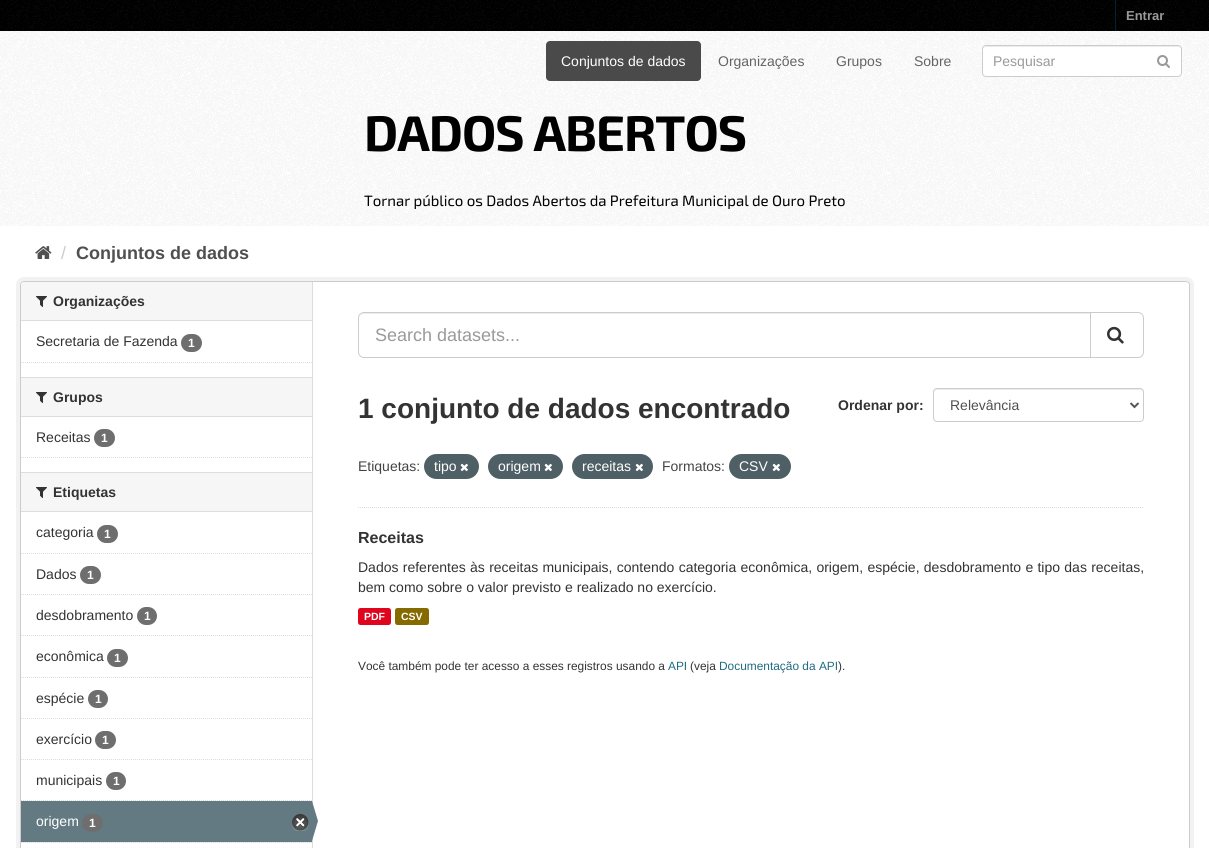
import math
import cairo


def use_color(cr, r, g, b):
  cr.set_source_rgb(r / 255, g / 255, b / 255)

def text(cr, x, y, s, family, size, color, bold=False, italic=False):
  cr.select_font_face(family, cairo.FONT_SLANT_ITALIC if italic else cairo.FONT_SLANT_NORMAL, cairo.FONT_WEIGHT_BOLD if bold else cairo.FONT_WEIGHT_NORMAL)
  cr.set_font_size(size)
  use_color(cr, *color)
  cr.move_to(x, y)
  cr.show_text(s)

def spaced_text(cr, x, y, s, letter, word):
  cr.move_to(x, y)
  for ch in s:
    cr.show_text(ch)
    cr.rel_move_to(letter + word * (ch == ' '), 0)

def box(cr, x, y, w, h, *color):
  use_color(cr, *color)
  cr.rectangle(x, y, w, h)
  cr.fill()

def round_rect(cr, x, y, w, h, r):
  cr.new_sub_path()
  for i, (u, v) in enumerate([(x + w - r, y + h - r), (x + r, y + h - r), (x + r, y + r), (x + w - r, y + r)]):
    cr.arc(u, v, r, i * math.pi / 2, (i + 1) * math.pi / 2)
  cr.close_path()

def picture(cr, path, x, y, w, h):
  cr.save()
  cr.set_source_surface(cairo.ImageSurface.create_from_png(path), x, y)
  cr.rectangle(x, y, w, h)
  cr.fill()
  cr.restore()

def draw(cr):
  use_color(cr, 0, 0, 0)
  cr.paint()
  picture(cr, "img_01.png", 0, 0, 1209, 31)
  box(cr, 1115, 0, 1, 31, 0, 35, 46)
  box(cr, 0, 31, 1209, 817, 255, 255, 255)
  picture(cr, "img_02.png", 0, 31, 1209, 195)
  use_color(cr, 74, 74, 74)
  round_rect(cr, 546, 41, 155, 40, 4)
  cr.fill()
  use_color(cr, 255, 255, 255)
  round_rect(cr, 982, 45, 200, 32, 4)
  cr.fill()
  use_color(cr, 236, 236, 236)
  cr.new_path()
  cr.move_to(986, 47)
  cr.line_to(1178, 47)
  cr.curve_to(1180, 47, 1181, 48, 1181, 50)
  cr.curve_to(1181, 48, 1180, 46, 1178, 46)
  cr.line_to(986, 46)
  cr.curve_to(984, 46, 983, 48, 983, 50)
  cr.curve_to(983, 48, 984, 47, 986, 47)
  cr.close_path()
  cr.fill()
  round_rect(cr, 982.5, 45.5, 199, 31, 3.5)
  use_color(cr, 204, 204, 204)
  cr.set_line_width(1)
  cr.stroke()
  picture(cr, "img_03.png", 1157, 55, 13, 13)
  picture(cr, "img_04.png", 35, 246, 17, 13)
  round_rect(cr, 18, 279, 1174, 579, 6)
  use_color(cr, 242, 242, 242)
  cr.set_line_width(4)
  cr.stroke()
  use_color(cr, 255, 255, 255)
  round_rect(cr, 20.5, 281.5, 1169, 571, 3.5)
  cr.fill_preserve()
  use_color(cr, 204, 204, 204)
  cr.set_line_width(1)
  cr.stroke()
  use_color(cr, 246, 246, 246)
  cr.new_path()
  cr.move_to(24, 282)
  cr.line_to(312, 282)
  cr.line_to(312, 321)
  cr.line_to(21, 321)
  cr.line_to(21, 285)
  cr.curve_to(21, 283.5, 22.5, 282, 24, 282)
  cr.close_path()
  cr.fill()
  box(cr, 21, 320, 291, 1, 221, 221, 221)
  picture(cr, "img_05.png", 36, 296, 11, 11)
  use_color(cr, 110, 110, 110)
  round_rect(cr, 181, 334, 21, 18, 9)
  cr.fill()
  cr.new_path()
  cr.move_to(21, 362.5)
  cr.line_to(312, 362.5)
  use_color(cr, 221, 221, 221)
  cr.set_dash([1, 1])
  cr.stroke()
  box(cr, 21, 378, 291, 38, 246, 246, 246)
  box(cr, 21, 377, 291, 1, 221, 221, 221)
  box(cr, 21, 416, 291, 1, 221, 221, 221)
  picture(cr, "img_05.png", 36, 392, 11, 11)
  use_color(cr, 110, 110, 110)
  round_rect(cr, 94, 429, 21, 18, 9)
  cr.fill()
  cr.new_path()
  cr.move_to(21, 457.5)
  cr.line_to(312, 457.5)
  use_color(cr, 221, 221, 221)
  cr.stroke()
  box(cr, 21, 473, 291, 38, 246, 246, 246)
  box(cr, 21, 472, 291, 1, 221, 221, 221)
  box(cr, 21, 511, 291, 1, 221, 221, 221)
  picture(cr, "img_05.png", 36, 487, 11, 11)
  cr.new_path()
  cr.move_to(21, 553.5)
  cr.line_to(312, 553.5)
  cr.stroke()
  use_color(cr, 110, 110, 110)
  round_rect(cr, 97, 525, 21, 18, 9)
  cr.fill()
  cr.new_path()
  cr.move_to(21, 594.5)
  cr.line_to(312, 594.5)
  use_color(cr, 221, 221, 221)
  cr.stroke()
  use_color(cr, 110, 110, 110)
  round_rect(cr, 80, 566, 21, 18, 9)
  cr.fill()
  cr.new_path()
  cr.move_to(21, 635.5)
  cr.line_to(312, 635.5)
  use_color(cr, 221, 221, 221)
  cr.stroke()
  use_color(cr, 110, 110, 110)
  round_rect(cr, 137, 607, 20, 18, 9)
  cr.fill()
  cr.new_path()
  cr.move_to(21, 677.5)
  cr.line_to(312, 677.5)
  use_color(cr, 221, 221, 221)
  cr.stroke()
  use_color(cr, 110, 110, 110)
  round_rect(cr, 107, 649, 21, 18, 9)
  cr.fill()
  cr.new_path()
  cr.move_to(21, 718.5)
  cr.line_to(312, 718.5)
  use_color(cr, 221, 221, 221)
  cr.stroke()
  use_color(cr, 110, 110, 110)
  round_rect(cr, 88, 690, 20, 18, 9)
  cr.fill()
  cr.new_path()
  cr.move_to(21, 759.5)
  cr.line_to(312, 759.5)
  use_color(cr, 221, 221, 221)
  cr.stroke()
  use_color(cr, 110, 110, 110)
  round_rect(cr, 95, 731, 21, 18, 9)
  cr.fill()
  cr.new_path()
  cr.move_to(21, 800.5)
  cr.line_to(312, 800.5)
  use_color(cr, 221, 221, 221)
  cr.stroke()
  use_color(cr, 110, 110, 110)
  round_rect(cr, 106, 772, 20, 18, 9)
  cr.fill()
  box(cr, 22, 842, 289, 1, 246, 246, 246)
  cr.new_path()
  cr.move_to(21, 842.5)
  cr.line_to(312, 842.5)
  use_color(cr, 221, 221, 221)
  cr.stroke()
  box(cr, 21, 801, 291, 41, 100, 122, 130)
  use_color(cr, 110, 110, 110)
  round_rect(cr, 82, 814, 21, 18, 9)
  cr.fill()
  picture(cr, "img_06.png", 292, 814, 17, 17)
  box(cr, 312, 282, 1, 566, 221, 221, 221)
  use_color(cr, 100, 122, 130)
  cr.new_path()
  cr.move_to(312, 841)
  cr.line_to(312, 801)
  cr.line_to(318, 821)
  cr.close_path()
  cr.fill()
  cr.new_path()
  cr.move_to(358, 507.5)
  cr.line_to(1144, 507.5)
  use_color(cr, 221, 221, 221)
  cr.stroke()
  use_color(cr, 236, 236, 236)
  cr.new_path()
  cr.move_to(364, 314)
  cr.line_to(1090, 314)
  cr.line_to(1090, 313)
  cr.line_to(364, 313)
  cr.curve_to(361, 313, 359, 316, 359, 319)
  cr.curve_to(359, 316, 361, 314, 364, 314)
  cr.close_path()
  cr.fill()
  cr.new_path()
  cr.move_to(364, 312.5)
  cr.line_to(1090.5, 312.5)
  cr.line_to(1090.5, 357.5)
  cr.line_to(364, 357.5)
  cr.curve_to(361, 357.5, 358.5, 355, 358.5, 352)
  cr.line_to(358.5, 318)
  cr.curve_to(358.5, 315, 361, 312.5, 364, 312.5)
  cr.close_path()
  use_color(cr, 204, 204, 204)
  cr.set_dash([])
  cr.stroke()
  use_color(cr, 255, 255, 255)
  cr.new_path()
  cr.move_to(1090.5, 312.5)
  cr.line_to(1138, 312.5)
  cr.curve_to(1141, 312.5, 1143.5, 315, 1143.5, 318)
  cr.line_to(1143.5, 352)
  cr.curve_to(1143.5, 355, 1141, 357.5, 1138, 357.5)
  cr.line_to(1090.5, 357.5)
  cr.close_path()
  cr.fill_preserve()
  use_color(cr, 204, 204, 204)
  cr.stroke()
  picture(cr, "img_07.png", 1107, 326, 17, 18)
  use_color(cr, 236, 236, 236)
  cr.new_path()
  cr.move_to(937, 390)
  cr.line_to(1140, 390)
  cr.curve_to(1142, 390, 1143, 391, 1143, 393)
  cr.line_to(1143, 392)
  cr.curve_to(1143, 390, 1142, 389, 1140, 389)
  cr.line_to(937, 389)
  cr.curve_to(935, 389, 934, 390, 934, 392)
  cr.line_to(934, 393)
  cr.curve_to(934, 391, 935, 390, 937, 390)
  cr.close_path()
  cr.fill()
  round_rect(cr, 933.5, 388.5, 210, 33, 3.5)
  use_color(cr, 204, 204, 204)
  cr.stroke()
  cr.new_path()
  cr.move_to(1130.5, 403)
  cr.line_to(1134.5, 407)
  cr.line_to(1138.5, 403)
  use_color(cr, 85, 85, 85)
  cr.set_line_width(2)
  cr.stroke()
  use_color(cr, 78, 95, 101)
  round_rect(cr, 424, 454, 55, 25, 12.5)
  cr.fill()
  picture(cr, "img_08.png", 460, 463, 8, 9)
  round_rect(cr, 488, 454, 75, 25, 12.5)
  cr.fill()
  picture(cr, "img_08.png", 544, 463, 8, 9)
  round_rect(cr, 572, 454, 81, 25, 12.5)
  cr.fill()
  picture(cr, "img_08.png", 635, 463, 8, 9)
  round_rect(cr, 729, 454, 62, 25, 12.5)
  cr.fill()
  picture(cr, "img_08.png", 772, 463, 8, 9)
  use_color(cr, 224, 5, 30)
  round_rect(cr, 358, 608, 33, 17, 2.5)
  cr.fill()
  use_color(cr, 133, 106, 0)
  round_rect(cr, 395, 608, 34, 17, 2.5)
  cr.fill()
  text(cr, 1126, 20, "Entrar", "Liberation Sans", 13, (154, 154, 154), bold=True)
  text(cr, 561, 66, "Conjuntos de dados", "Liberation Sans", 14, (255, 255, 255))
  text(cr, 718, 66, "Organizações", "Liberation Sans", 14, (100, 100, 100))
  text(cr, 836, 66, "Grupos", "Liberation Sans", 14, (100, 100, 100))
  text(cr, 914, 66, "Sobre", "Liberation Sans", 14, (100, 100, 100))
  text(cr, 993, 66, "Pesquisar", "Liberation Sans", 14, (154, 154, 154))
  cr.select_font_face("Exo 2", cairo.FONT_SLANT_NORMAL, cairo.FONT_WEIGHT_BOLD)
  cr.set_font_size(50)
  use_color(cr, 0, 0, 0)
  spaced_text(cr, 364, 151, "DADOS ABERTOS", -1, 0)
  text(cr, 364, 206, "Tornar público os Dados Abertos da Prefeitura Municipal de Ouro Preto", "Exo 2", 15, (0, 0, 0))
  text(cr, 61, 259, "/", "Liberation Sans", 18, (204, 204, 204))
  text(cr, 76, 259, "Conjuntos de dados", "Liberation Sans", 18, (80, 80, 80), bold=True)
  text(cr, 53, 306, "Organizações", "Liberation Sans", 14, (51, 51, 51), bold=True)
  text(cr, 36, 346, "Secretaria de Fazenda", "Liberation Sans", 14, (51, 51, 51))
  text(cr, 188, 347, "1", "Liberation Sans", 12, (255, 255, 255), bold=True)
  text(cr, 53, 402, "Grupos", "Liberation Sans", 14, (51, 51, 51), bold=True)
  text(cr, 36, 442, "Receitas", "Liberation Sans", 14, (51, 51, 51))
  text(cr, 101, 442, "1", "Liberation Sans", 12, (255, 255, 255), bold=True)
  text(cr, 53, 497, "Etiquetas", "Liberation Sans", 14, (51, 51, 51), bold=True)
  text(cr, 36, 537, "categoria", "Liberation Sans", 14, (51, 51, 51))
  text(cr, 104, 538, "1", "Liberation Sans", 12, (255, 255, 255), bold=True)
  text(cr, 36, 579, "Dados", "Liberation Sans", 14, (51, 51, 51))
  text(cr, 87, 579, "1", "Liberation Sans", 12, (255, 255, 255), bold=True)
  text(cr, 36, 620, "desdobramento", "Liberation Sans", 14, (51, 51, 51))
  text(cr, 144, 620, "1", "Liberation Sans", 12, (255, 255, 255), bold=True)
  text(cr, 36, 661, "econômica", "Liberation Sans", 14, (51, 51, 51))
  text(cr, 114, 662, "1", "Liberation Sans", 12, (255, 255, 255), bold=True)
  text(cr, 36, 703, "espécie", "Liberation Sans", 14, (51, 51, 51))
  text(cr, 95, 703, "1", "Liberation Sans", 12, (255, 255, 255), bold=True)
  text(cr, 36, 744, "exercício", "Liberation Sans", 14, (51, 51, 51))
  text(cr, 102, 744, "1", "Liberation Sans", 12, (255, 255, 255), bold=True)
  text(cr, 36, 785, "municipais", "Liberation Sans", 14, (51, 51, 51))
  text(cr, 113, 785, "1", "Liberation Sans", 12, (255, 255, 255), bold=True)
  text(cr, 36, 826, "origem", "Liberation Sans", 14, (255, 255, 255))
  text(cr, 89, 827, "1", "Liberation Sans", 12, (255, 255, 255), bold=True)
  text(cr, 375, 341, "Search datasets...", "Liberation Sans", 18, (154, 154, 154))
  text(cr, 358, 418, "1 conjunto de dados encontrado", "Liberation Sans", 28, (51, 51, 51), bold=True)
  text(cr, 838, 410, "Ordenar por:", "Liberation Sans", 14, (51, 51, 51), bold=True)
  text(cr, 950, 410, "Relevância", "Liberation Sans", 14, (80, 80, 80))
  text(cr, 358, 471, "Etiquetas:", "Liberation Sans", 14, (68, 68, 68))
  text(cr, 434, 471, "tipo", "Liberation Sans", 14, (255, 255, 255))
  text(cr, 498, 471, "origem", "Liberation Sans", 14, (255, 255, 255))
  text(cr, 582, 471, "receitas", "Liberation Sans", 14, (255, 255, 255))
  text(cr, 662, 471, "Formatos:", "Liberation Sans", 14, (68, 68, 68))
  text(cr, 739, 471, "CSV", "Liberation Sans", 14, (255, 255, 255))
  text(cr, 358, 543, "Receitas", "Liberation Sans", 16, (51, 51, 51), bold=True)
  cr.select_font_face("Liberation Sans")
  cr.set_font_size(14)
  spaced_text(cr, 358, 572, "Dados referentes às receitas municipais, contendo categoria econômica, origem, espécie, desdobramento e tipo das receitas,", 0, 0.4)
  text(cr, 358, 592, "bem como sobre o valor previsto e realizado no exercício.", "Liberation Sans", 14, (51, 51, 51))
  text(cr, 364, 620, "PDF", "Liberation Sans", 10.5, (255, 255, 255), bold=True)
  text(cr, 401, 620, "CSV", "Liberation Sans", 10.5, (255, 255, 255), bold=True)
  text(cr, 358, 670, "Você também pode ter acesso a esses registros usando a", "Liberation Sans", 11.9, (51, 51, 51))
  text(cr, 668, 670, "API", "Liberation Sans", 11.9, (32, 107, 130))
  text(cr, 690, 670, "(veja", "Liberation Sans", 11.9, (51, 51, 51))
  text(cr, 719, 670, "Documentação da API", "Liberation Sans", 11.9, (32, 107, 130))
  text(cr, 838, 670, ").", "Liberation Sans", 11.9, (51, 51, 51))


surface = cairo.ImageSurface(cairo.FORMAT_RGB24, 1209, 848)
cr = cairo.Context(surface)
options = cairo.FontOptions()
options.set_hint_metrics(cairo.HINT_METRICS_OFF)
options.set_hint_style(cairo.HINT_STYLE_NONE)
cr.set_font_options(options)
cr.set_miter_limit(4)
draw(cr)
surface.write_to_png("out.png")
